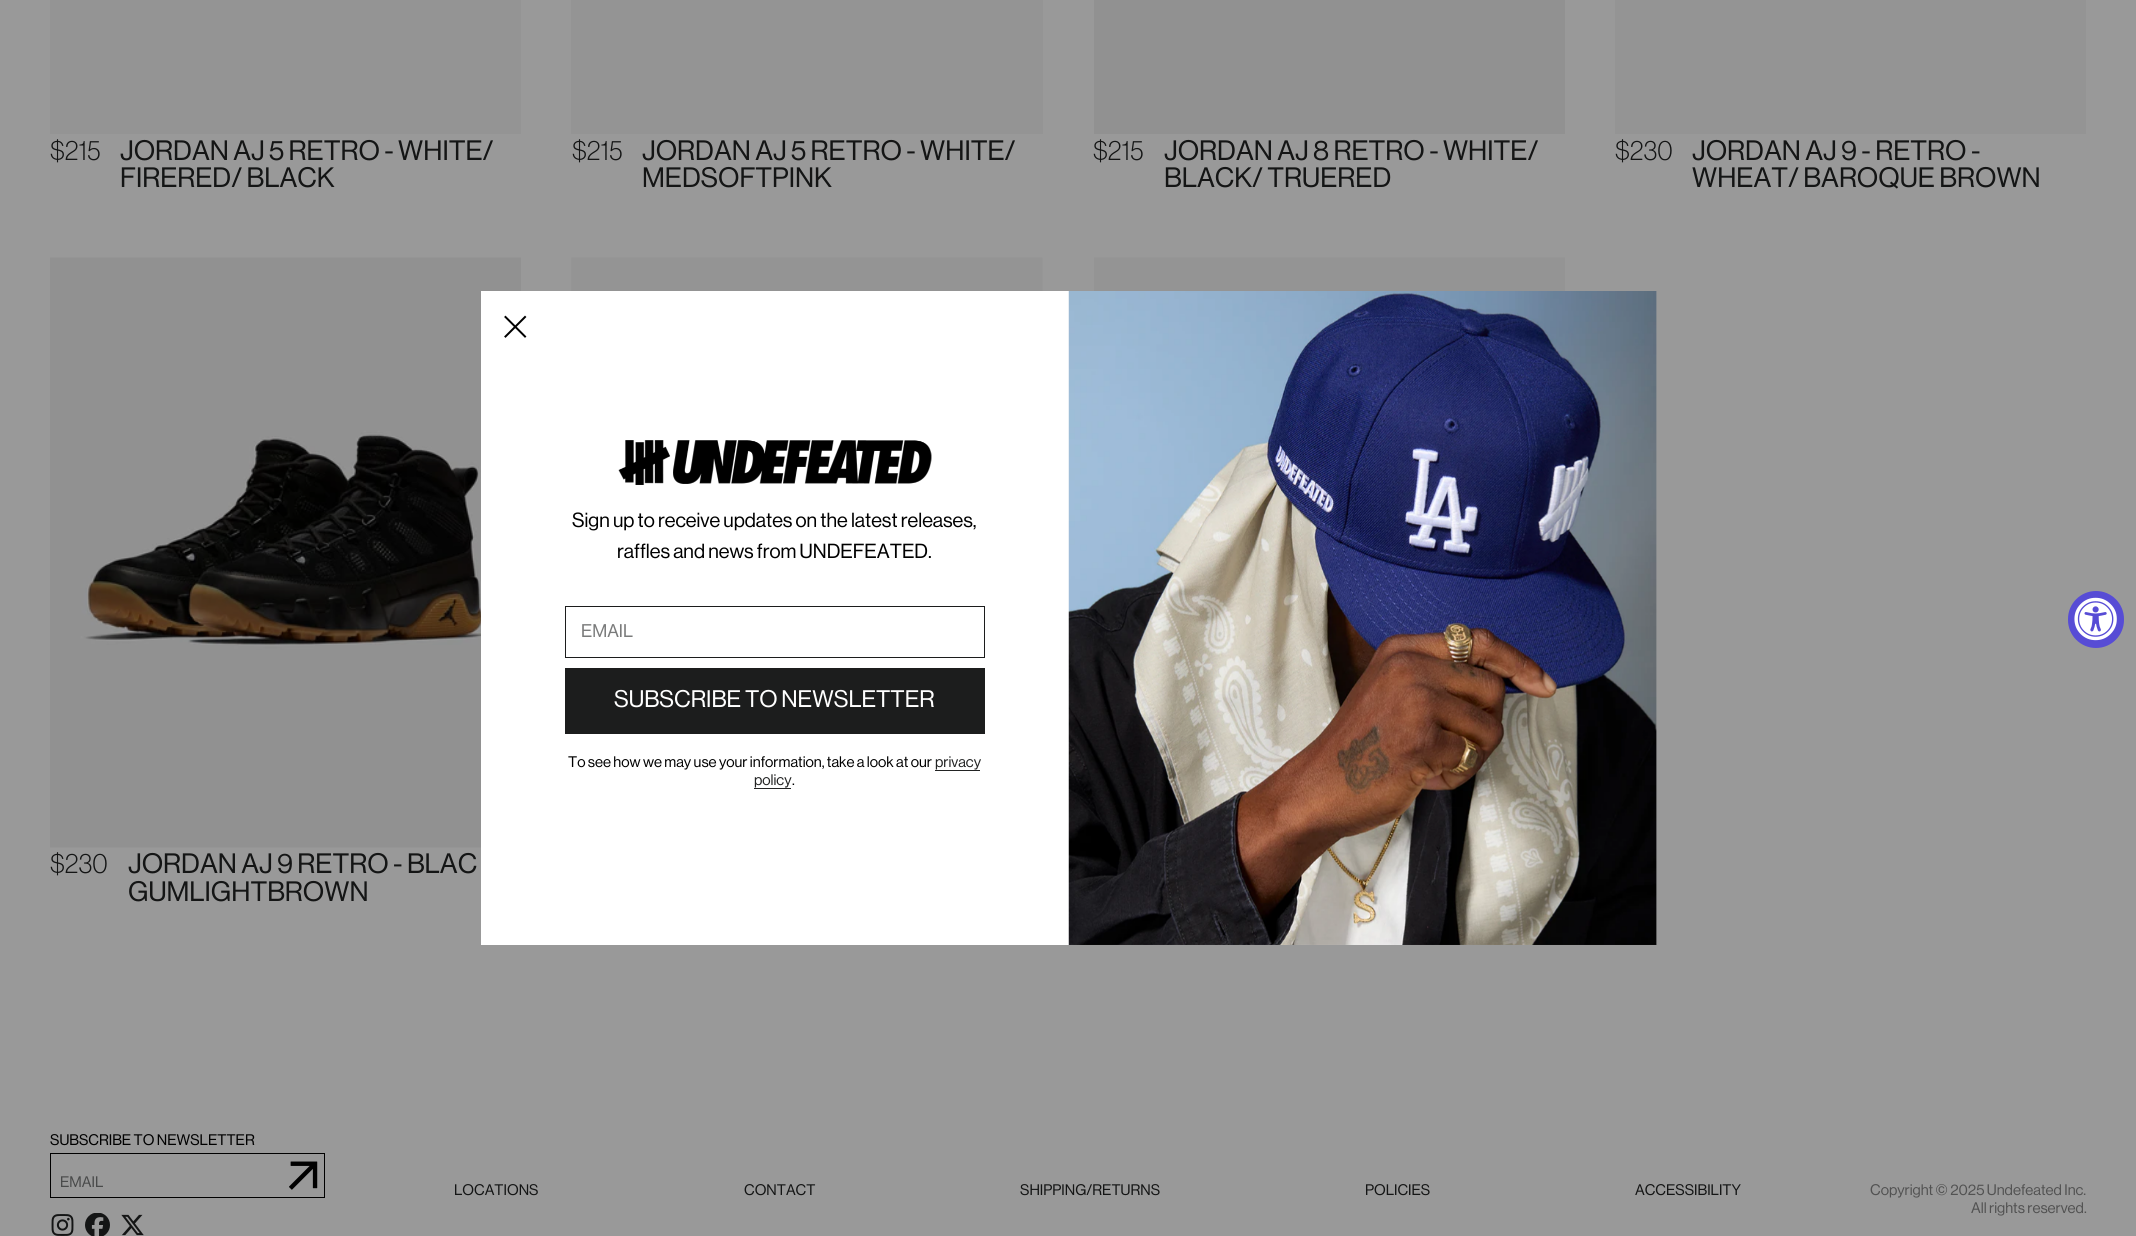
import math
import cairo


def use_color(cr, r, g, b):
  cr.set_source_rgb(r / 255, g / 255, b / 255)

def text(cr, x, y, s, family, size, color, bold=False, italic=False):
  cr.select_font_face(family, cairo.FONT_SLANT_ITALIC if italic else cairo.FONT_SLANT_NORMAL, cairo.FONT_WEIGHT_BOLD if bold else cairo.FONT_WEIGHT_NORMAL)
  cr.set_font_size(size)
  use_color(cr, *color)
  cr.move_to(x, y)
  cr.show_text(s)

def box(cr, x, y, w, h, *color):
  use_color(cr, *color)
  cr.rectangle(x, y, w, h)
  cr.fill()

def round_rect(cr, x, y, w, h, r):
  cr.new_sub_path()
  for i, (u, v) in enumerate([(x + w - r, y + h - r), (x + r, y + h - r), (x + r, y + r), (x + w - r, y + r)]):
    cr.arc(u, v, r, i * math.pi / 2, (i + 1) * math.pi / 2)
  cr.close_path()

def picture(cr, path, x, y, w, h):
  cr.save()
  cr.set_source_surface(cairo.ImageSurface.create_from_png(path), x, y)
  cr.rectangle(x, y, w, h)
  cr.fill()
  cr.restore()

def draw(cr):
  use_color(cr, 153, 153, 153)
  cr.paint()
  box(cr, 50, 0, 471, 134, 148, 148, 148)
  box(cr, 571, 0, 472, 134, 148, 148, 148)
  box(cr, 1094, 0, 471, 134, 145, 145, 145)
  box(cr, 1615, 0, 471, 134, 148, 148, 148)
  picture(cr, "img_01.png", 571, 257, 472, 34)
  picture(cr, "img_02.png", 1094, 257, 471, 34)
  picture(cr, "img_03.png", 50, 257, 471, 591)
  box(cr, 481, 291, 1175, 654, 255, 255, 255)
  cr.new_path()
  cr.move_to(525, 317)
  cr.line_to(505.5, 336.5)
  cr.move_to(505.5, 317)
  cr.line_to(525, 336.5)
  use_color(cr, 0, 0, 0)
  cr.set_line_cap(cairo.LINE_CAP_SQUARE)
  cr.stroke()
  picture(cr, "img_04.png", 618, 440, 314, 45)
  cr.rectangle(565.5, 606.5, 419, 51)
  use_color(cr, 28, 29, 29)
  cr.set_line_width(1)
  cr.set_line_cap(cairo.LINE_CAP_BUTT)
  cr.stroke()
  box(cr, 565, 668, 420, 66, 28, 29, 29)
  box(cr, 935, 770, 45, 1, 34, 35, 35)
  box(cr, 754, 788, 37, 1, 34, 35, 35)
  picture(cr, "img_05.png", 1068, 291, 589, 654)
  use_color(cr, 87, 76, 213)
  round_rect(cr, 2068, 591, 56, 57, 28)
  cr.fill()
  picture(cr, "img_06.png", 2074, 597, 43, 44)
  cr.rectangle(50.5, 1153.5, 274, 44)
  use_color(cr, 0, 0, 0)
  cr.stroke()
  picture(cr, "img_07.png", 289, 1161, 29, 29)
  picture(cr, "img_08.png", 51, 1214, 23, 22)
  picture(cr, "img_09.png", 85, 1213, 25, 23)
  picture(cr, "img_10.png", 121, 1214, 23, 22)
  text(cr, 50, 160, "$215", "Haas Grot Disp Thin", 27.5, (20, 21, 21))
  text(cr, 120, 160, "JORDAN AJ 5 RETRO - WHITE/", "Haas Grot Disp", 27.5, (20, 21, 21))
  text(cr, 120, 187, "FIRERED/ BLACK", "Haas Grot Disp", 27.5, (20, 21, 21))
  text(cr, 572, 160, "$215", "Haas Grot Disp Thin", 27.5, (20, 21, 21))
  text(cr, 642, 160, "JORDAN AJ 5 RETRO - WHITE/", "Haas Grot Disp", 27.5, (20, 21, 21))
  text(cr, 642, 187, "MEDSOFTPINK", "Haas Grot Disp", 27.5, (20, 21, 21))
  text(cr, 1093, 160, "$215", "Haas Grot Disp Thin", 27.5, (20, 21, 21))
  text(cr, 1164, 160, "JORDAN AJ 8 RETRO - WHITE/", "Haas Grot Disp", 27.5, (20, 21, 21))
  text(cr, 1164, 187, "BLACK/ TRUERED", "Haas Grot Disp", 27.5, (20, 21, 21))
  text(cr, 1615, 160, "$230", "Haas Grot Disp Thin", 27.5, (20, 21, 21))
  text(cr, 1692, 160, "JORDAN AJ 9 - RETRO -", "Haas Grot Disp", 27.5, (20, 21, 21))
  text(cr, 1692, 187, "WHEAT/ BAROQUE BROWN", "Haas Grot Disp", 27.5, (20, 21, 21))
  text(cr, 50, 873, "$230", "Haas Grot Disp Thin", 27.5, (20, 21, 21))
  text(cr, 128, 873, "JORDAN AJ 9 RETRO - BLAC", "Haas Grot Disp", 27.5, (20, 21, 21))
  text(cr, 128, 901, "GUMLIGHTBROWN", "Haas Grot Disp", 27.5, (20, 21, 21))
  text(cr, 572, 527, "Sign up to receive updates on the latest releases,", "Haas Grot Disp", 20, (0, 0, 0))
  text(cr, 617, 558, "raffles and news from UNDEFEATED.", "Haas Grot Disp", 20, (0, 0, 0))
  text(cr, 581, 637, "EMAIL", "Haas Grot Disp", 18, (122, 123, 123))
  text(cr, 614, 707, "SUBSCRIBE TO NEWSLETTER", "Haas Grot Disp", 23.5, (255, 255, 255))
  text(cr, 568, 767, "To see how we may use your information, take a look at our", "Haas Grot Disp", 15, (0, 0, 0))
  text(cr, 935, 767, "privacy", "Haas Grot Disp", 15, (34, 35, 35))
  text(cr, 754, 785, "policy", "Haas Grot Disp", 15, (34, 35, 35))
  text(cr, 792, 785, ".", "Haas Grot Disp", 15, (0, 0, 0))
  text(cr, 50, 1145, "SUBSCRIBE TO NEWSLETTER", "Haas Grot Disp", 15, (0, 0, 0))
  text(cr, 60, 1187, "EMAIL", "Haas Grot Disp", 15, (73, 74, 74))
  text(cr, 454, 1195, "LOCATIONS", "Haas Grot Disp", 15, (20, 21, 21))
  text(cr, 744, 1195, "CONTACT", "Haas Grot Disp", 15, (20, 21, 21))
  text(cr, 1020, 1195, "SHIPPING/RETURNS", "Haas Grot Disp", 15, (20, 21, 21))
  text(cr, 1365, 1195, "POLICIES", "Haas Grot Disp", 15, (20, 21, 21))
  text(cr, 1635, 1195, "ACCESSIBILITY", "Haas Grot Disp", 15, (20, 21, 21))
  text(cr, 1870, 1195, "Copyright © 2025 Undefeated Inc.", "Haas Grot Disp", 15, (82, 82, 82))
  text(cr, 1971, 1213, "All rights reserved.", "Haas Grot Disp", 15, (82, 82, 82))


surface = cairo.ImageSurface(cairo.FORMAT_RGB24, 2136, 1236)
cr = cairo.Context(surface)
options = cairo.FontOptions()
options.set_hint_metrics(cairo.HINT_METRICS_OFF)
options.set_hint_style(cairo.HINT_STYLE_NONE)
cr.set_font_options(options)
cr.set_miter_limit(4)
draw(cr)
surface.write_to_png("out.png")
